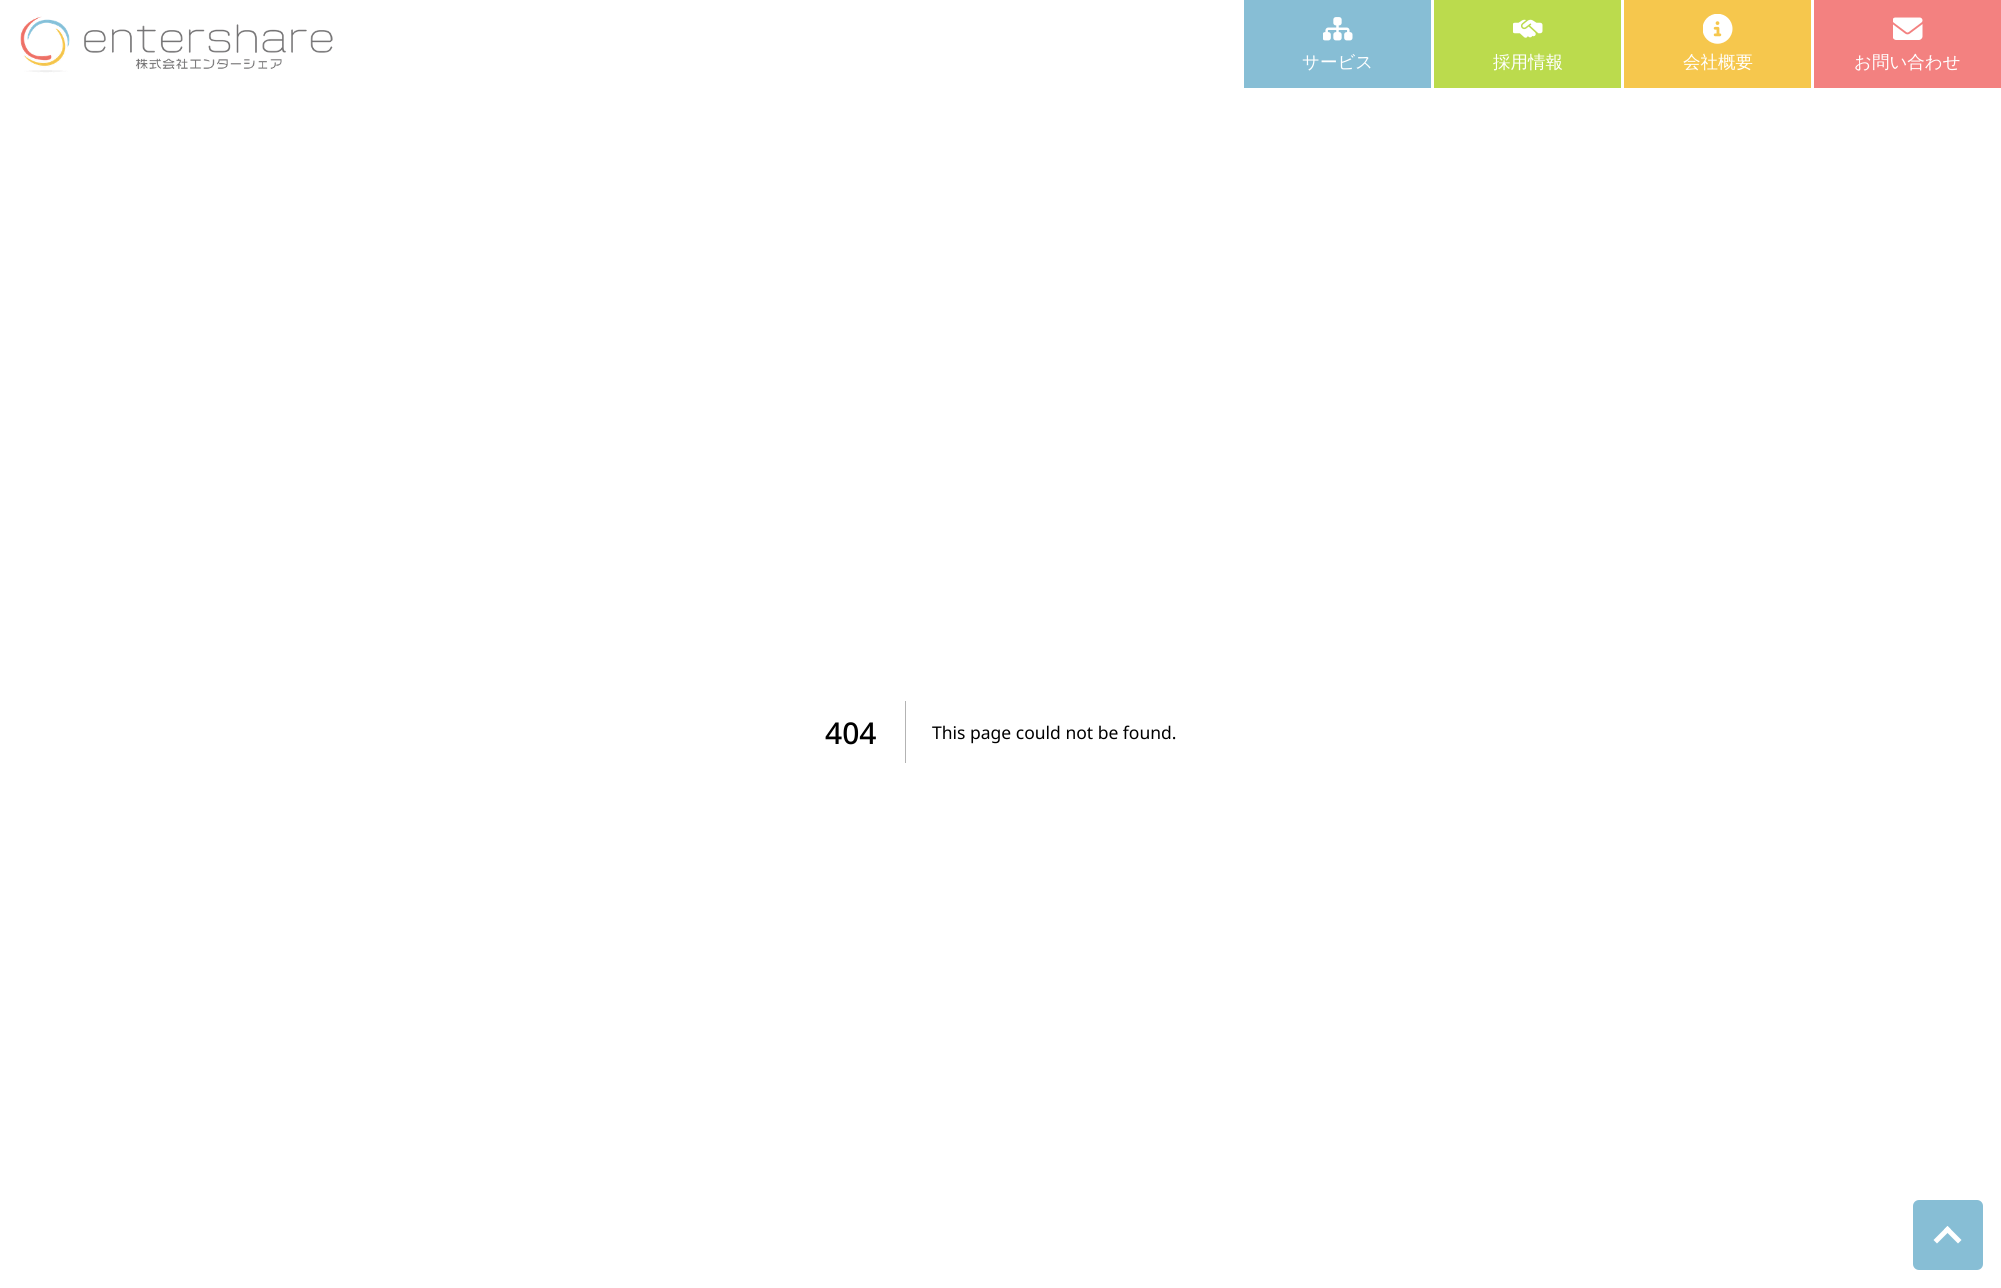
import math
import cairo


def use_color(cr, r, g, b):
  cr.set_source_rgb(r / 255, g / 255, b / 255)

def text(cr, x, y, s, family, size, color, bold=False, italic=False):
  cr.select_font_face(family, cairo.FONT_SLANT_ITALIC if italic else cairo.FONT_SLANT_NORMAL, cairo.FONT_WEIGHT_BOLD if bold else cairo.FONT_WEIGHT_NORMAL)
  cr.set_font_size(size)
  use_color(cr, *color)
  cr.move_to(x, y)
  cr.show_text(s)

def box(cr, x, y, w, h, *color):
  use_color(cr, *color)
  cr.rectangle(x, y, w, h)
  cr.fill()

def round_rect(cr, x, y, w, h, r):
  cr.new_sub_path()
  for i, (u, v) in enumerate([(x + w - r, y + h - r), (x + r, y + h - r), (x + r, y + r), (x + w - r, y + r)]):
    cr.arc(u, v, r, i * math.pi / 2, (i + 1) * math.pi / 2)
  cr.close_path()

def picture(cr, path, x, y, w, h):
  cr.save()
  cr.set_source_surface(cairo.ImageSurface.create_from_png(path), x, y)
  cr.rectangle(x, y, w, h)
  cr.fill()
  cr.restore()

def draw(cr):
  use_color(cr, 255, 255, 255)
  cr.paint()
  picture(cr, "img_01.png", 20, 16, 313, 57)
  box(cr, 1244, 0, 187, 88, 135, 190, 213)
  picture(cr, "img_02.png", 1323, 17, 30, 24)
  box(cr, 1434, 0, 187, 88, 187, 219, 77)
  picture(cr, "img_03.png", 1513, 19, 30, 19)
  box(cr, 1624, 0, 187, 88, 246, 199, 77)
  picture(cr, "img_04.png", 1703, 14, 30, 30)
  box(cr, 1814, 0, 187, 88, 243, 129, 128)
  picture(cr, "img_05.png", 1893, 17, 30, 23)
  box(cr, 905, 701, 1, 62, 179, 179, 179)
  use_color(cr, 135, 190, 213)
  round_rect(cr, 1913, 1200, 70, 70, 6)
  cr.fill()
  use_color(cr, 255, 255, 255)
  cr.new_path()
  cr.move_to(1933.5, 1240)
  cr.line_to(1947.5, 1226)
  cr.line_to(1951, 1229.5)
  cr.line_to(1937, 1243.5)
  cr.close_path()
  cr.fill()
  cr.new_path()
  cr.move_to(1944, 1229.5)
  cr.line_to(1947.5, 1226)
  cr.line_to(1961.5, 1240)
  cr.line_to(1958, 1243.5)
  cr.close_path()
  cr.fill()
  text(cr, 1302, 68, "サービス", "WenQuanYi Zen Hei Medium", 17.5, (255, 255, 255))
  text(cr, 1493, 68, "採用情報", "WenQuanYi Zen Hei Medium", 17.5, (255, 255, 255))
  text(cr, 1683, 68, "会社概要", "WenQuanYi Zen Hei Medium", 17.5, (255, 255, 255))
  text(cr, 1854, 68, "お問い合わせ", "WenQuanYi Zen Hei Medium", 17.5, (255, 255, 255))
  text(cr, 825, 744, "404", "Noto Sans Medium", 30, (0, 0, 0))
  text(cr, 932, 739, "This page could not be found.", "Noto Sans", 17.5, (0, 0, 0))


surface = cairo.ImageSurface(cairo.FORMAT_RGB24, 2001, 1288)
cr = cairo.Context(surface)
options = cairo.FontOptions()
options.set_hint_metrics(cairo.HINT_METRICS_OFF)
options.set_hint_style(cairo.HINT_STYLE_NONE)
cr.set_font_options(options)
cr.set_miter_limit(4)
draw(cr)
surface.write_to_png("out.png")
